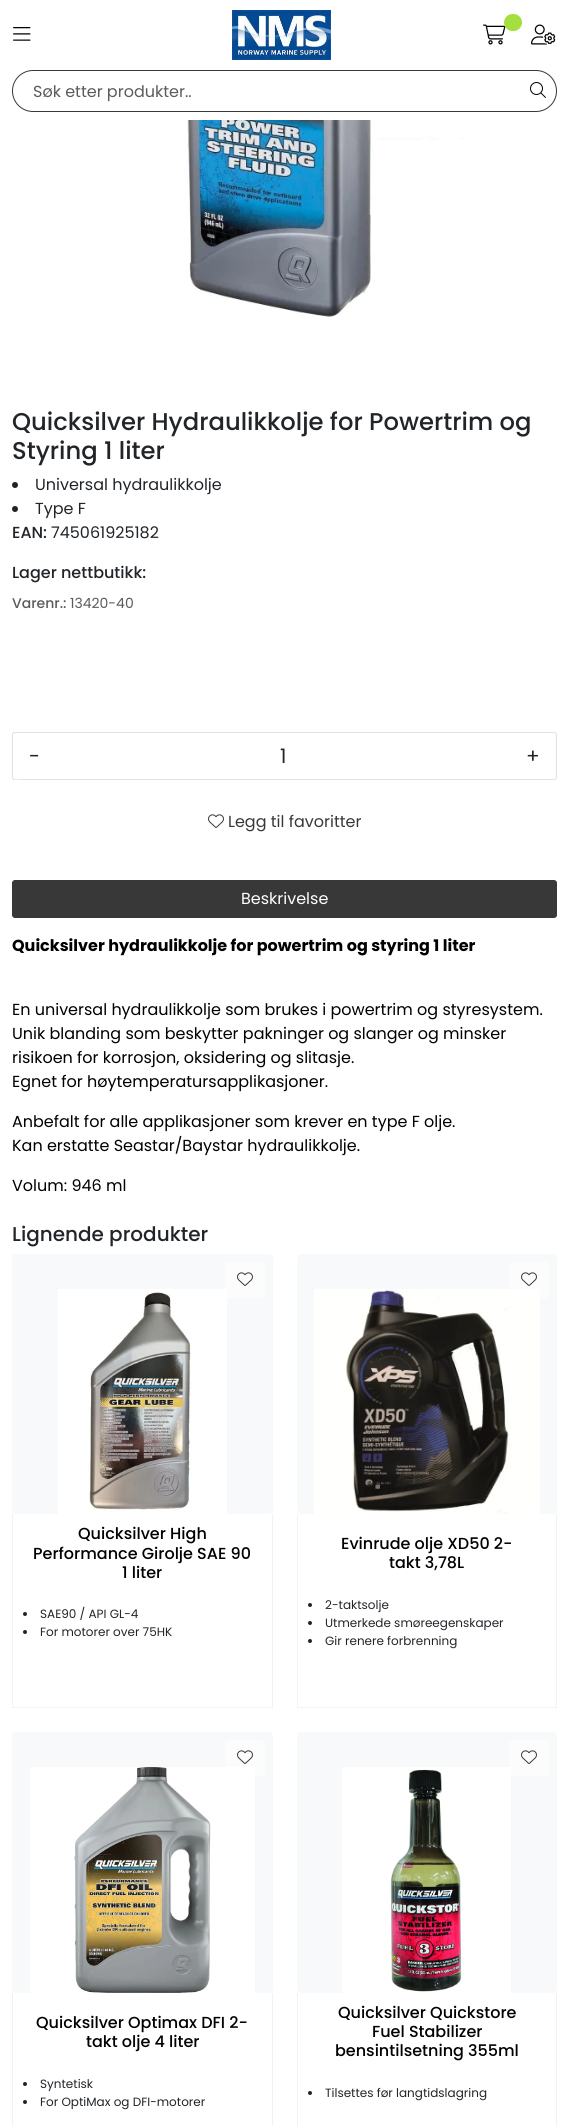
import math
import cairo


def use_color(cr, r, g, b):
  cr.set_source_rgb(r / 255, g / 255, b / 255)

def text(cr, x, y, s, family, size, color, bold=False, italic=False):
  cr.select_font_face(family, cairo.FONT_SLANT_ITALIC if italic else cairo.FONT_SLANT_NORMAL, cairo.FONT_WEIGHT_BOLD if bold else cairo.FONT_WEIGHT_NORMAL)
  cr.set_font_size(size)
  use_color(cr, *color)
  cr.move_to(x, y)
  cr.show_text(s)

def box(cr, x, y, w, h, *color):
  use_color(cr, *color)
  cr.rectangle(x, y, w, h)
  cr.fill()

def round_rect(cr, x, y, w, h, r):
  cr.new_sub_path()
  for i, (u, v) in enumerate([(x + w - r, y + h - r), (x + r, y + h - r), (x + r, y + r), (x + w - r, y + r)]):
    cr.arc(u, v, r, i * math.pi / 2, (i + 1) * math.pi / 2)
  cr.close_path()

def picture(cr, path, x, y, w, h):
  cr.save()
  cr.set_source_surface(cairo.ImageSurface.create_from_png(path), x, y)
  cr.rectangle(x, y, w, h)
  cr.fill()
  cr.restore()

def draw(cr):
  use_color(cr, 255, 255, 255)
  cr.paint()
  picture(cr, "img_01.png", 13, 27, 18, 14)
  picture(cr, "img_02.png", 232, 10, 99, 50)
  picture(cr, "img_03.png", 483, 24, 23, 21)
  use_color(cr, 164, 223, 63)
  round_rect(cr, 504, 14, 18, 17, 8.5)
  cr.fill()
  picture(cr, "img_04.png", 531, 24, 25, 21)
  round_rect(cr, 12.5, 70.5, 544, 41, 20.5)
  use_color(cr, 56, 56, 56)
  cr.set_line_width(1)
  cr.stroke()
  picture(cr, "img_05.png", 530, 82, 16, 16)
  picture(cr, "img_06.png", 186, 120, 278, 197)
  use_color(cr, 33, 37, 41)
  cr.arc(15, 485, 3, 0, 2 * math.pi)
  cr.fill()
  cr.arc(15, 509, 3, 0, 2 * math.pi)
  cr.fill()
  box(cr, 55, 732, 456, 1, 222, 226, 230)
  box(cr, 55, 779, 456, 1, 222, 226, 230)
  use_color(cr, 255, 255, 255)
  cr.new_path()
  cr.move_to(15, 732)
  cr.line_to(56, 732)
  cr.line_to(56, 780)
  cr.line_to(15, 780)
  cr.curve_to(13.5, 780, 12, 778.5, 12, 777)
  cr.line_to(12, 735)
  cr.curve_to(12, 733.5, 13.5, 732, 15, 732)
  cr.close_path()
  cr.fill()
  use_color(cr, 222, 226, 230)
  cr.set_fill_rule(cairo.FILL_RULE_EVEN_ODD)
  cr.new_path()
  cr.move_to(15, 732)
  cr.line_to(56, 732)
  cr.line_to(56, 780)
  cr.line_to(15, 780)
  cr.curve_to(13, 780, 12, 779, 12, 777)
  cr.line_to(12, 735)
  cr.curve_to(12, 733, 13, 732, 15, 732)
  cr.close_path()
  cr.move_to(15, 733)
  cr.line_to(56, 733)
  cr.line_to(56, 779)
  cr.line_to(22, 779)
  cr.curve_to(22, 779, 13, 781, 13, 777)
  cr.line_to(13, 734)
  cr.close_path()
  cr.fill()
  use_color(cr, 255, 255, 255)
  cr.new_path()
  cr.move_to(510, 732)
  cr.line_to(554, 732)
  cr.curve_to(555.5, 732, 557, 733.5, 557, 735)
  cr.line_to(557, 777)
  cr.curve_to(557, 778.5, 555.5, 780, 554, 780)
  cr.line_to(510, 780)
  cr.close_path()
  cr.fill()
  use_color(cr, 222, 226, 230)
  cr.new_path()
  cr.move_to(510, 732)
  cr.line_to(554, 732)
  cr.curve_to(556, 732, 557, 733, 557, 735)
  cr.line_to(557, 777)
  cr.curve_to(557, 779, 556, 780, 554, 780)
  cr.line_to(510, 780)
  cr.close_path()
  cr.move_to(510, 733)
  cr.line_to(554, 733)
  cr.curve_to(555, 733, 556, 734, 556, 735)
  cr.line_to(556, 777)
  cr.curve_to(556, 778, 555, 779, 554, 779)
  cr.line_to(510, 779)
  cr.close_path()
  cr.fill()
  picture(cr, "img_07.png", 208, 814, 16, 14)
  use_color(cr, 56, 56, 56)
  round_rect(cr, 12.5, 880.5, 544, 37, 2.5)
  cr.fill_preserve()
  cr.stroke()
  use_color(cr, 248, 249, 250)
  round_rect(cr, 12, 1254, 261, 260, 3)
  cr.fill()
  picture(cr, "img_08.png", 58, 1289, 169, 225)
  use_color(cr, 242, 242, 242)
  cr.set_fill_rule(cairo.FILL_RULE_WINDING)
  cr.new_path()
  cr.move_to(273, 1514)
  cr.line_to(273, 1708)
  cr.line_to(272, 1707)
  cr.line_to(272, 1514)
  cr.close_path()
  cr.fill()
  cr.set_source_rgba(0, 0, 0, 0.05)
  cr.new_path()
  cr.move_to(273, 1708)
  cr.line_to(12, 1708)
  cr.line_to(13, 1707)
  cr.line_to(272, 1707)
  cr.close_path()
  cr.fill()
  cr.new_path()
  cr.move_to(12, 1708)
  cr.line_to(12, 1514)
  cr.line_to(13, 1514)
  cr.line_to(13, 1707)
  cr.close_path()
  cr.fill()
  cr.set_source_rgba(1, 1, 1, 0.5)
  round_rect(cr, 225, 1262, 40, 36, 3)
  cr.fill()
  picture(cr, "img_09.png", 237, 1272, 16, 14)
  use_color(cr, 33, 37, 41)
  cr.arc(25, 1614, 2, 0, 2 * math.pi)
  cr.fill()
  cr.arc(25, 1632, 2, 0, 2 * math.pi)
  cr.fill()
  use_color(cr, 248, 249, 250)
  round_rect(cr, 297, 1254, 260, 260, 3)
  cr.fill()
  picture(cr, "img_10.png", 314, 1289, 226, 225)
  use_color(cr, 242, 242, 242)
  cr.new_path()
  cr.move_to(557, 1514)
  cr.line_to(557, 1708)
  cr.line_to(556, 1707)
  cr.line_to(556, 1514)
  cr.close_path()
  cr.fill()
  cr.set_source_rgba(0, 0, 0, 0.05)
  cr.new_path()
  cr.move_to(557, 1708)
  cr.line_to(297, 1708)
  cr.line_to(298, 1707)
  cr.line_to(556, 1707)
  cr.close_path()
  cr.fill()
  cr.new_path()
  cr.move_to(297, 1708)
  cr.line_to(297, 1514)
  cr.line_to(298, 1514)
  cr.line_to(298, 1707)
  cr.close_path()
  cr.fill()
  cr.set_source_rgba(1, 1, 1, 0.5)
  round_rect(cr, 509, 1262, 40, 36, 3)
  cr.fill()
  picture(cr, "img_09.png", 521, 1272, 16, 14)
  use_color(cr, 33, 37, 41)
  cr.arc(310, 1605, 2, 0, 2 * math.pi)
  cr.fill()
  cr.arc(310, 1623, 2, 0, 2 * math.pi)
  cr.fill()
  cr.arc(310, 1641, 2, 0, 2 * math.pi)
  cr.fill()
  use_color(cr, 248, 249, 250)
  round_rect(cr, 12, 1732, 261, 261, 3)
  cr.fill()
  picture(cr, "img_11.png", 30, 1767, 225, 226)
  use_color(cr, 242, 242, 242)
  cr.new_path()
  cr.move_to(273, 1993)
  cr.line_to(273, 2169)
  cr.line_to(272, 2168)
  cr.line_to(272, 1993)
  cr.close_path()
  cr.fill()
  cr.new_path()
  cr.move_to(12, 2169)
  cr.line_to(12, 1993)
  cr.line_to(13, 1993)
  cr.line_to(13, 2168)
  cr.close_path()
  cr.fill()
  cr.set_source_rgba(1, 1, 1, 0.5)
  round_rect(cr, 225, 1740, 40, 36, 3)
  cr.fill()
  picture(cr, "img_09.png", 237, 1750, 16, 14)
  use_color(cr, 33, 37, 41)
  cr.arc(25, 2084, 2, 0, 2 * math.pi)
  cr.fill()
  cr.arc(25, 2102, 2, 0, 2 * math.pi)
  cr.fill()
  use_color(cr, 248, 249, 250)
  round_rect(cr, 297, 1732, 260, 261, 3)
  cr.fill()
  picture(cr, "img_12.png", 342, 1767, 169, 226)
  use_color(cr, 242, 242, 242)
  cr.new_path()
  cr.move_to(557, 1993)
  cr.line_to(557, 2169)
  cr.line_to(556, 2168)
  cr.line_to(556, 1993)
  cr.close_path()
  cr.fill()
  cr.new_path()
  cr.move_to(297, 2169)
  cr.line_to(297, 1993)
  cr.line_to(298, 1993)
  cr.line_to(298, 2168)
  cr.close_path()
  cr.fill()
  cr.set_source_rgba(1, 1, 1, 0.5)
  round_rect(cr, 509, 1740, 40, 36, 3)
  cr.fill()
  picture(cr, "img_09.png", 521, 1750, 16, 14)
  use_color(cr, 33, 37, 41)
  cr.arc(310, 2093, 2, 0, 2 * math.pi)
  cr.fill()
  text(cr, 33, 97, "Søk etter produkter..", "Poppins", 16, (89, 92, 95))
  text(cr, 12, 430, "Quicksilver Hydraulikkolje for Powertrim og", "Poppins Medium", 24.25, (33, 37, 41))
  text(cr, 12, 459, "Styring 1 liter", "Poppins Medium", 24.25, (33, 37, 41))
  text(cr, 35, 490, "Universal hydraulikkolje", "Poppins", 16, (33, 37, 41))
  text(cr, 35, 514, "Type F", "Poppins", 16, (33, 37, 41))
  text(cr, 12, 538, "EAN:", "Poppins Medium", 16, (33, 37, 41))
  text(cr, 51, 538, "745061925182", "Poppins", 16, (33, 37, 41))
  text(cr, 12, 578, "Lager nettbutikk:", "Poppins Medium", 16, (33, 37, 41))
  text(cr, 12, 608, "Varenr.:", "Poppins Medium", 14, (89, 92, 95))
  text(cr, 70, 608, "13420-40", "Poppins", 14, (89, 92, 95))
  text(cr, 29, 763, "-", "Poppins", 20, (33, 37, 41))
  text(cr, 280, 763, "1", "Poppins", 20, (33, 37, 41))
  text(cr, 526, 763, "+", "Poppins", 20, (33, 37, 41))
  text(cr, 228, 827, "Legg til favoritter", "Poppins", 16, (56, 56, 56))
  text(cr, 241, 904, "Beskrivelse", "Poppins", 16, (255, 255, 255))
  text(cr, 12, 951, "Quicksilver hydraulikkolje for powertrim og styring 1 liter", "Poppins", 16, (0, 0, 0), bold=True)
  text(cr, 12, 1015, "En universal hydraulikkolje som brukes i powertrim og styresystem.", "Poppins", 16, (0, 0, 0))
  text(cr, 12, 1039, "Unik blanding som beskytter pakninger og slanger og minsker", "Poppins", 16, (0, 0, 0))
  text(cr, 12, 1063, "risikoen for korrosjon, oksidering og slitasje.", "Poppins", 16, (0, 0, 0))
  text(cr, 12, 1087, "Egnet for høytemperatursapplikasjoner.", "Poppins", 16, (0, 0, 0))
  text(cr, 12, 1127, "Anbefalt for alle applikasjoner som krever en type F olje.", "Poppins", 16, (0, 0, 0))
  text(cr, 12, 1151, "Kan erstatte Seastar/Baystar hydraulikkolje.", "Poppins", 16, (0, 0, 0))
  text(cr, 12, 1191, "Volum: 946 ml", "Poppins", 16, (0, 0, 0))
  text(cr, 12, 1241, "Lignende produkter", "Poppins Medium", 20, (33, 37, 41))
  text(cr, 78, 1539, "Quicksilver High", "Poppins Medium", 16, (0, 0, 0))
  text(cr, 33, 1559, "Performance Girolje SAE 90", "Poppins Medium", 16, (0, 0, 0))
  text(cr, 122, 1578, "1 liter", "Poppins Medium", 16, (0, 0, 0))
  text(cr, 40, 1618, "SAE90 / API GL-4", "Poppins", 12, (33, 37, 41))
  text(cr, 40, 1636, "For motorer over 75HK", "Poppins", 12, (33, 37, 41))
  text(cr, 341, 1549, "Evinrude olje XD50 2-", "Poppins Medium", 16, (0, 0, 0))
  text(cr, 389, 1568, "takt 3,78L", "Poppins Medium", 16, (0, 0, 0))
  text(cr, 325, 1609, "2-taktsolje", "Poppins", 12, (33, 37, 41))
  text(cr, 325, 1627, "Utmerkede smøreegenskaper", "Poppins", 12, (33, 37, 41))
  text(cr, 325, 1645, "Gir renere forbrenning", "Poppins", 12, (33, 37, 41))
  text(cr, 36, 2028, "Quicksilver Optimax DFI 2-", "Poppins Medium", 16, (0, 0, 0))
  text(cr, 86, 2047, "takt olje 4 liter", "Poppins Medium", 16, (0, 0, 0))
  text(cr, 40, 2088, "Syntetisk", "Poppins", 12, (33, 37, 41))
  text(cr, 40, 2106, "For OptiMax og DFI-motorer", "Poppins", 12, (33, 37, 41))
  text(cr, 338, 2018, "Quicksilver Quickstore", "Poppins Medium", 16, (0, 0, 0))
  text(cr, 372, 2037, "Fuel Stabilizer", "Poppins Medium", 16, (0, 0, 0))
  text(cr, 335, 2056, "bensintilsetning 355ml", "Poppins Medium", 16, (0, 0, 0))
  text(cr, 325, 2097, "Tilsettes før langtidslagring", "Poppins", 12, (33, 37, 41))


surface = cairo.ImageSurface(cairo.FORMAT_RGB24, 569, 2126)
cr = cairo.Context(surface)
options = cairo.FontOptions()
options.set_hint_metrics(cairo.HINT_METRICS_OFF)
options.set_hint_style(cairo.HINT_STYLE_NONE)
cr.set_font_options(options)
cr.set_miter_limit(4)
draw(cr)
surface.write_to_png("out.png")
